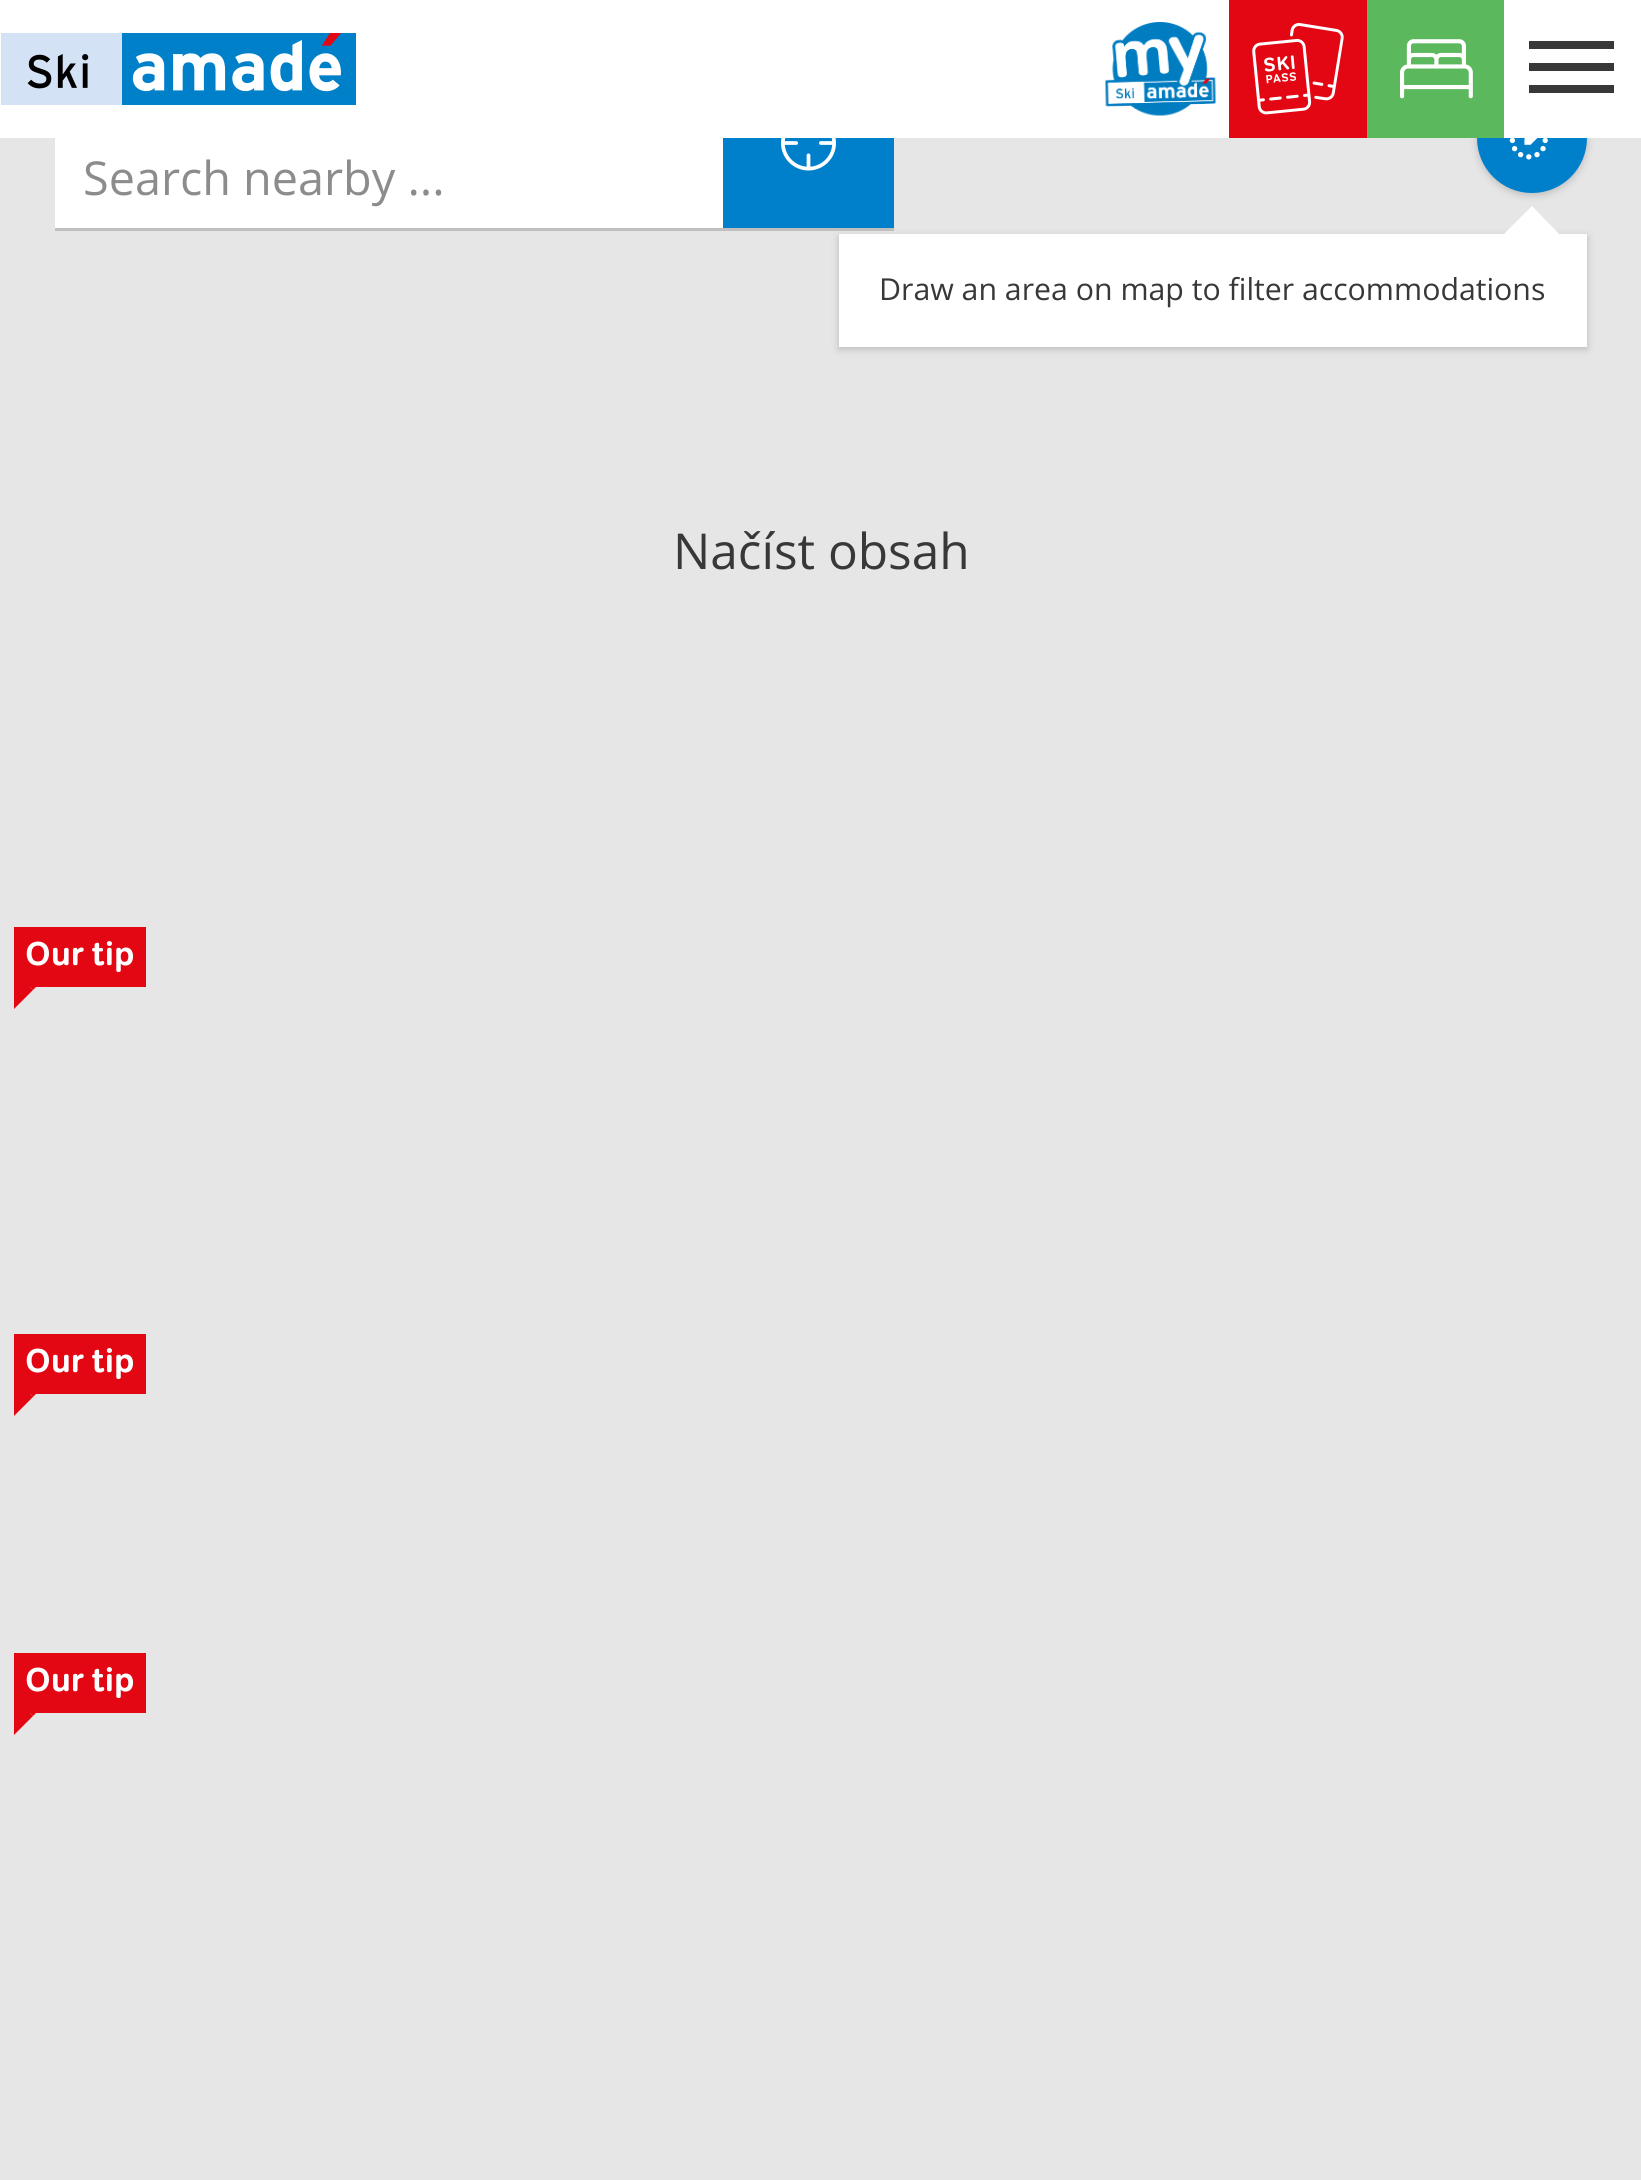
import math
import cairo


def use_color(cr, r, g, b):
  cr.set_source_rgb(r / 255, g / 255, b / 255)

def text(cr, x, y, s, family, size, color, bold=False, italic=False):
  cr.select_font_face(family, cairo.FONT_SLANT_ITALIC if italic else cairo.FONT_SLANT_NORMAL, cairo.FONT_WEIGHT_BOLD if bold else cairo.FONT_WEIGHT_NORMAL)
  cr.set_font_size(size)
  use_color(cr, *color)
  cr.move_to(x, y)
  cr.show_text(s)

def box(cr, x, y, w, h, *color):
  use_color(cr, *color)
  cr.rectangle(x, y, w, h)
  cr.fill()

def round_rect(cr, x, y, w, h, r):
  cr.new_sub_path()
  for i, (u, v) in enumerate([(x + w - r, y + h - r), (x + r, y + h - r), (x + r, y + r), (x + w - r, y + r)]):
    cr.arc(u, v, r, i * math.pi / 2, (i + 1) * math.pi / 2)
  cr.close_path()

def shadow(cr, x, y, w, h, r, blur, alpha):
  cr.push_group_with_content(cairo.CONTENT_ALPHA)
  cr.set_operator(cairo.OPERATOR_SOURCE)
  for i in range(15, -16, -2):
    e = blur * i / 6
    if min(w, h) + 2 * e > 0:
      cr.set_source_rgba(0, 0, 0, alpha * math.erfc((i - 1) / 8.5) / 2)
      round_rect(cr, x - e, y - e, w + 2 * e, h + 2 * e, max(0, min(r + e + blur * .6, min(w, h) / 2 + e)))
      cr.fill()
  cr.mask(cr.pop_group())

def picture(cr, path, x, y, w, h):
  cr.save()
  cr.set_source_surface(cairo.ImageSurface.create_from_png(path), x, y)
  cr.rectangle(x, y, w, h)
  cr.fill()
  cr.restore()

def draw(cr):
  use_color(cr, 230, 230, 230)
  cr.paint()
  use_color(cr, 0, 0, 0)
  shadow(cr, 1477, 85, 110, 110, 55, 4, 0.2)
  use_color(cr, 0, 128, 203)
  cr.arc(1532, 138, 55, 0, 2 * math.pi)
  cr.fill()
  box(cr, 0, 0, 1641, 138, 255, 255, 255)
  picture(cr, "img_01.png", 1, 33, 355, 72)
  picture(cr, "img_02.png", 1105, 22, 111, 94)
  box(cr, 1229, 0, 138, 138, 227, 6, 19)
  picture(cr, "img_03.png", 1252, 23, 92, 92)
  box(cr, 1367, 0, 137, 138, 92, 184, 92)
  picture(cr, "img_04.png", 1400, 39, 73, 60)
  box(cr, 1529, 41, 85, 8, 56, 56, 56)
  box(cr, 1529, 63, 85, 8, 56, 56, 56)
  box(cr, 1529, 85, 85, 8, 56, 56, 56)
  box(cr, 55, 138, 668, 90, 255, 255, 255)
  use_color(cr, 0, 0, 0)
  shadow(cr, 839, 237, 748, 112, 0, 4, 0.2)
  box(cr, 55, 228, 839, 3, 191, 191, 191)
  box(cr, 723, 138, 171, 90, 0, 128, 203)
  picture(cr, "img_05.png", 781, 138, 55, 33)
  picture(cr, "img_06.png", 1509, 138, 39, 22)
  box(cr, 839, 234, 748, 113, 255, 255, 255)
  cr.new_path()
  cr.move_to(1559, 234)
  cr.line_to(1504, 234)
  cr.line_to(1532, 206)
  cr.close_path()
  cr.fill()
  box(cr, 14, 927, 132, 60, 227, 6, 19)
  cr.new_path()
  cr.move_to(14, 971)
  cr.line_to(52, 971)
  cr.line_to(33, 990)
  cr.close_path()
  cr.fill()
  cr.new_path()
  cr.move_to(14, 1009)
  cr.line_to(14, 971)
  cr.line_to(33, 990)
  cr.close_path()
  cr.fill()
  box(cr, 14, 1334, 132, 60, 227, 6, 19)
  cr.new_path()
  cr.move_to(14, 1378)
  cr.line_to(52, 1378)
  cr.line_to(33, 1397)
  cr.close_path()
  cr.fill()
  cr.new_path()
  cr.move_to(14, 1416)
  cr.line_to(14, 1378)
  cr.line_to(33, 1397)
  cr.close_path()
  cr.fill()
  box(cr, 14, 1653, 132, 60, 227, 6, 19)
  cr.new_path()
  cr.move_to(14, 1697)
  cr.line_to(52, 1697)
  cr.line_to(33, 1716)
  cr.close_path()
  cr.fill()
  cr.new_path()
  cr.move_to(14, 1735)
  cr.line_to(14, 1697)
  cr.line_to(33, 1716)
  cr.close_path()
  cr.fill()
  text(cr, 83, 195, "Search nearby ...", "Open Sans", 46.75, (140, 140, 140))
  text(cr, 879, 300, "Draw an area on map to filter accommodations", "Open Sans", 30.25, (56, 56, 56))
  text(cr, 673, 569, "Načíst obsah", "Open Sans", 49.5, (56, 56, 56))
  text(cr, 25, 965, "Our tip", "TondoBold", 33, (255, 255, 255))
  text(cr, 25, 1372, "Our tip", "TondoBold", 33, (255, 255, 255))
  text(cr, 25, 1691, "Our tip", "TondoBold", 33, (255, 255, 255))


surface = cairo.ImageSurface(cairo.FORMAT_RGB24, 1641, 2180)
cr = cairo.Context(surface)
options = cairo.FontOptions()
options.set_hint_metrics(cairo.HINT_METRICS_OFF)
options.set_hint_style(cairo.HINT_STYLE_NONE)
cr.set_font_options(options)
cr.set_miter_limit(4)
draw(cr)
surface.write_to_png("out.png")
